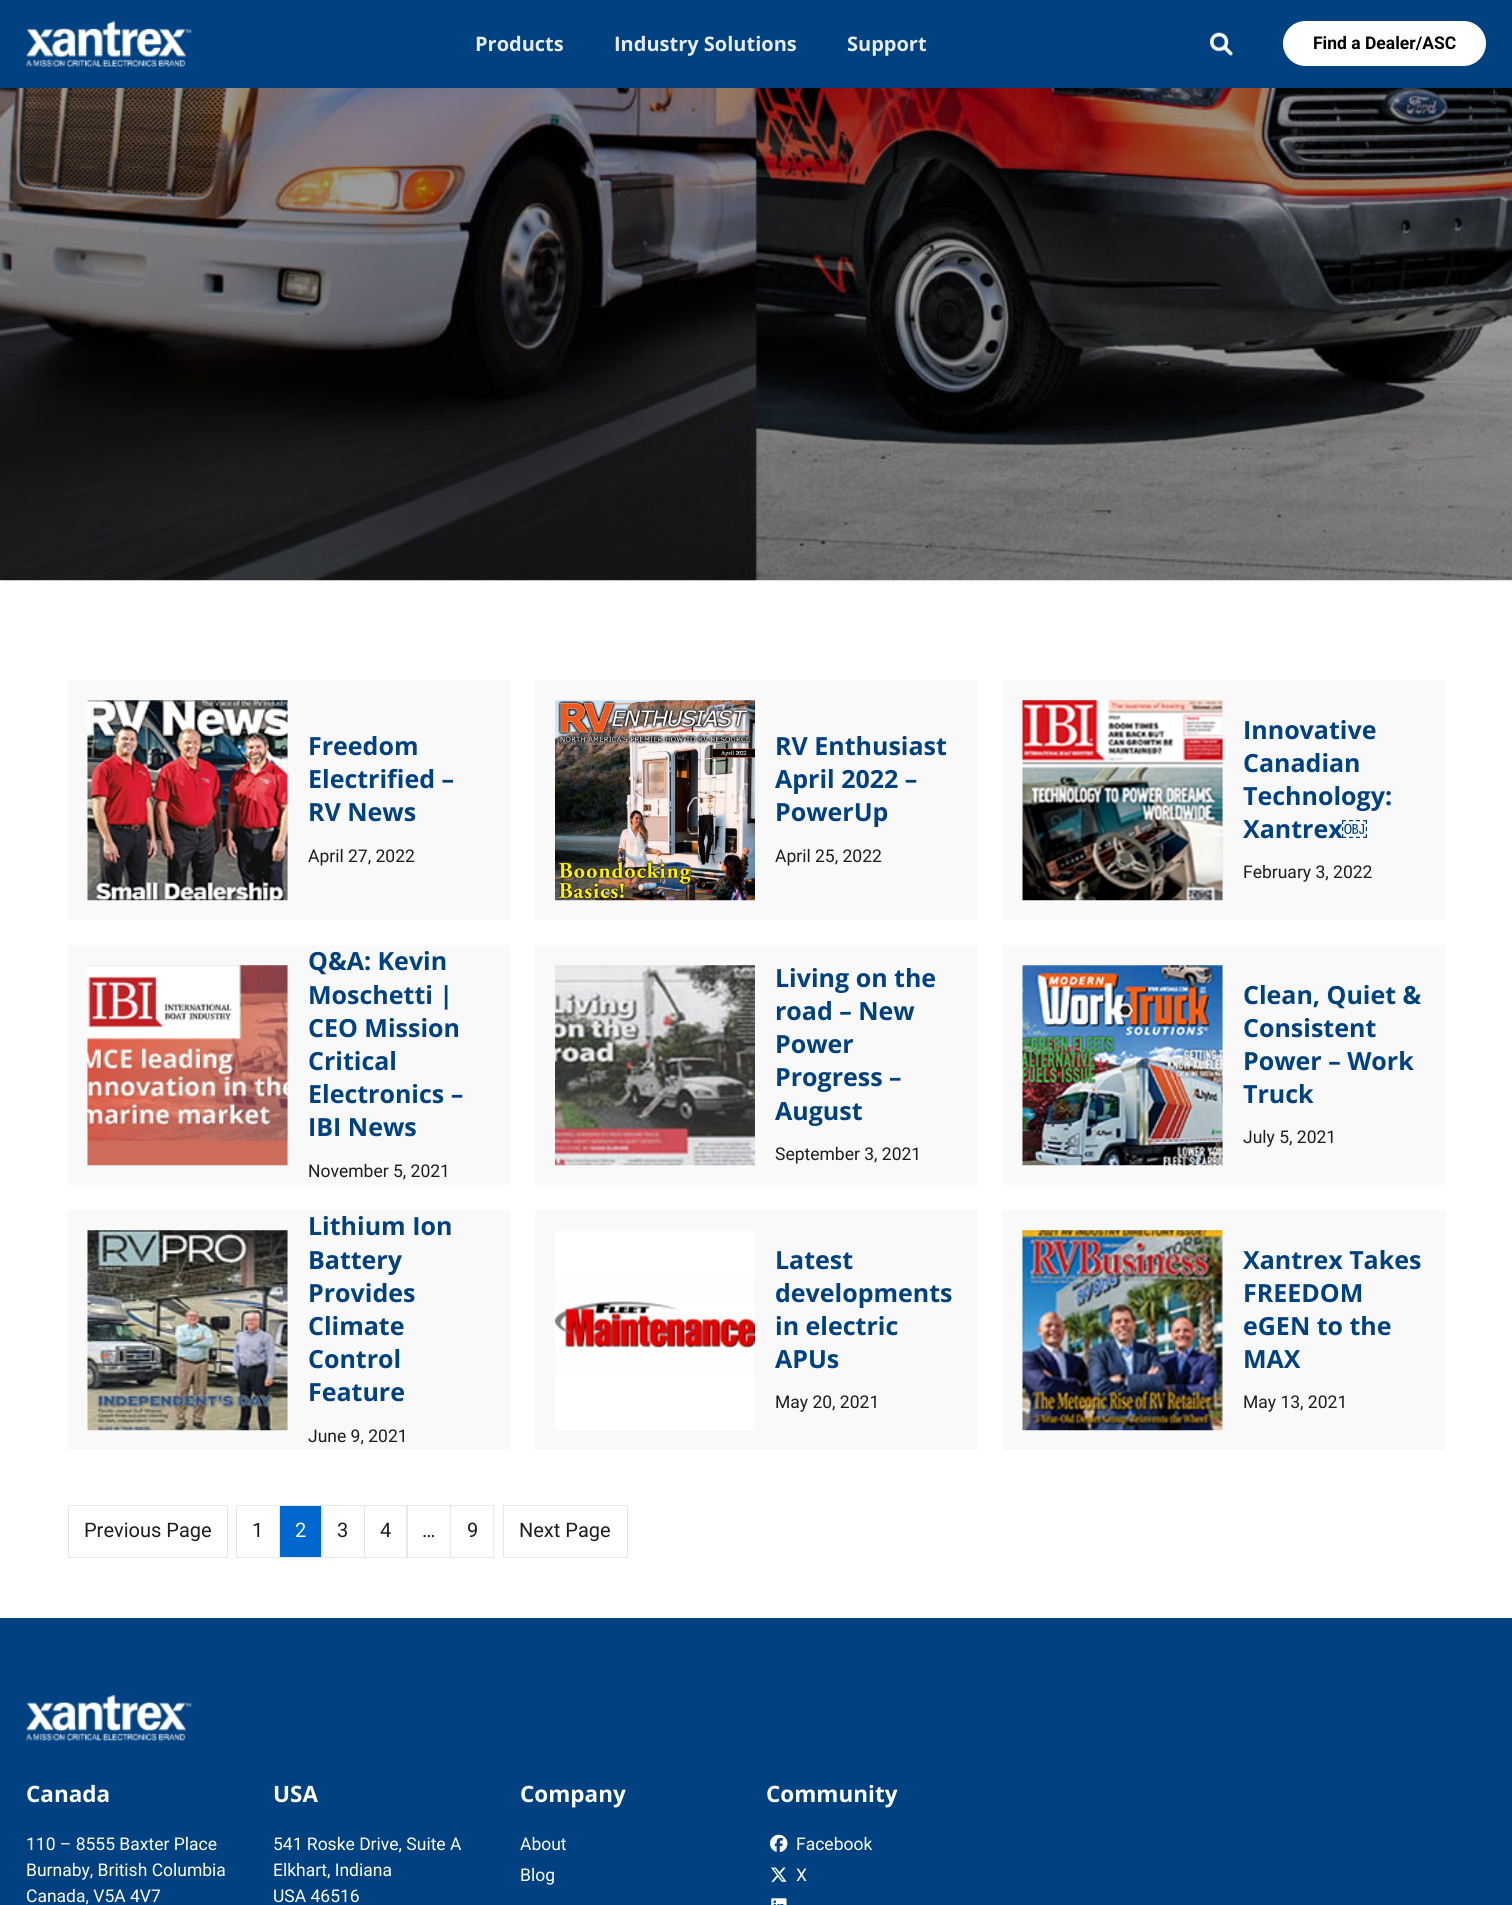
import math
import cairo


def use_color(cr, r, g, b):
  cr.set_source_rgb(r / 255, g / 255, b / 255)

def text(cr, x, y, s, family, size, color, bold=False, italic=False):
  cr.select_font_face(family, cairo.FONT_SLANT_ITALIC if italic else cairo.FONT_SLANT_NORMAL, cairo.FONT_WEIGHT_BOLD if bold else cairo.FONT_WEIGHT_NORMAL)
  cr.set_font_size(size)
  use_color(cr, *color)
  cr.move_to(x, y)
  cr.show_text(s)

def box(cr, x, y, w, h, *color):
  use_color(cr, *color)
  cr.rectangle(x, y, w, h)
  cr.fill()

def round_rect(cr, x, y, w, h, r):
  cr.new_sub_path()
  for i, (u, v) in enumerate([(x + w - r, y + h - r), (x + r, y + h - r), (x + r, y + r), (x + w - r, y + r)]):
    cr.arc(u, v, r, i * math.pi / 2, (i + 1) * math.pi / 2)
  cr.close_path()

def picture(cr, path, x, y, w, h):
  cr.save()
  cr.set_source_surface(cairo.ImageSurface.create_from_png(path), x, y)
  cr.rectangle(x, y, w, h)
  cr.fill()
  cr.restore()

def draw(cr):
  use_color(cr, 255, 255, 255)
  cr.paint()
  box(cr, 0, 0, 1512, 88, 0, 65, 129)
  picture(cr, "img_01.png", 26, 20, 166, 47)
  picture(cr, "img_02.png", 1210, 32, 23, 24)
  use_color(cr, 255, 255, 255)
  round_rect(cr, 1283, 21, 203, 45, 22.5)
  cr.fill()
  picture(cr, "img_03.png", 0, 88, 1512, 493)
  box(cr, 68, 680, 442, 240, 249, 249, 249)
  box(cr, 88, 700, 200, 200, 237, 237, 237)
  picture(cr, "img_04.png", 87, 700, 201, 201)
  box(cr, 535, 680, 443, 240, 249, 249, 249)
  picture(cr, "img_05.png", 555, 700, 200, 201)
  box(cr, 1003, 680, 442, 240, 249, 249, 249)
  box(cr, 1023, 700, 200, 200, 237, 237, 237)
  picture(cr, "img_06.png", 1022, 700, 201, 201)
  box(cr, 68, 945, 442, 240, 249, 249, 249)
  box(cr, 88, 965, 200, 200, 237, 237, 237)
  picture(cr, "img_07.png", 87, 965, 201, 201)
  box(cr, 535, 945, 443, 240, 249, 249, 249)
  picture(cr, "img_08.png", 555, 965, 200, 201)
  box(cr, 1003, 945, 442, 240, 249, 249, 249)
  box(cr, 1023, 965, 200, 200, 237, 237, 237)
  picture(cr, "img_09.png", 1022, 965, 201, 201)
  box(cr, 68, 1210, 442, 240, 249, 249, 249)
  box(cr, 88, 1230, 200, 200, 237, 237, 237)
  picture(cr, "img_10.png", 87, 1230, 201, 201)
  box(cr, 535, 1210, 443, 240, 249, 249, 249)
  box(cr, 555, 1230, 200, 200, 237, 237, 237)
  picture(cr, "img_11.png", 555, 1230, 200, 200)
  box(cr, 1003, 1210, 442, 240, 249, 249, 249)
  box(cr, 1023, 1230, 200, 200, 237, 237, 237)
  picture(cr, "img_12.png", 1022, 1230, 201, 201)
  cr.rectangle(68.5, 1505.5, 159, 52)
  use_color(cr, 231, 231, 233)
  cr.set_line_width(1)
  cr.stroke()
  cr.rectangle(236.5, 1505.5, 43, 52)
  cr.stroke()
  box(cr, 280, 1506, 41, 51, 0, 103, 207)
  cr.rectangle(279.5, 1505.5, 43, 52)
  use_color(cr, 231, 231, 233)
  cr.stroke()
  cr.rectangle(321.5, 1505.5, 43, 52)
  cr.stroke()
  cr.rectangle(364.5, 1505.5, 43, 52)
  cr.stroke()
  cr.rectangle(406.5, 1505.5, 44, 52)
  cr.stroke()
  cr.rectangle(450.5, 1505.5, 43, 52)
  cr.stroke()
  cr.rectangle(503.5, 1505.5, 124, 52)
  cr.stroke()
  box(cr, 0, 1618, 1512, 287, 0, 65, 129)
  picture(cr, "img_13.png", 26, 1694, 166, 47)
  picture(cr, "img_14.png", 770, 1834, 18, 18)
  picture(cr, "img_15.png", 771, 1867, 16, 15)
  picture(cr, "img_16.png", 771, 1898, 16, 7)
  text(cr, 475, 51, "Products", "Open Sans", 20, (230, 236, 242), bold=True)
  text(cr, 614, 51, "Industry Solutions", "Open Sans", 20, (230, 236, 242), bold=True)
  text(cr, 847, 51, "Support", "Open Sans", 20, (230, 236, 242), bold=True)
  text(cr, 1313, 49, "Find a Dealer/ASC", "Roboto", 17.5, (0, 0, 0), bold=True)
  text(cr, 308, 755, "Freedom", "Open Sans", 25, (0, 65, 129), bold=True)
  text(cr, 308, 788, "Electrified –", "Open Sans", 25, (0, 65, 129), bold=True)
  text(cr, 308, 821, "RV News", "Open Sans", 25, (0, 65, 129), bold=True)
  text(cr, 308, 862, "April 27, 2022", "Roboto", 17.5, (29, 29, 31))
  text(cr, 775, 755, "RV Enthusiast", "Open Sans", 25, (0, 65, 129), bold=True)
  text(cr, 775, 788, "April 2022 –", "Open Sans", 25, (0, 65, 129), bold=True)
  text(cr, 775, 821, "PowerUp", "Open Sans", 25, (0, 65, 129), bold=True)
  text(cr, 775, 862, "April 25, 2022", "Roboto", 17.5, (29, 29, 31))
  text(cr, 1243, 739, "Innovative", "Open Sans", 25, (0, 65, 129), bold=True)
  text(cr, 1243, 772, "Canadian", "Open Sans", 25, (0, 65, 129), bold=True)
  text(cr, 1243, 805, "Technology:", "Open Sans", 25, (0, 65, 129), bold=True)
  text(cr, 1243, 838, "Xantrex", "Open Sans", 25, (0, 65, 129), bold=True)
  text(cr, 1342, 838, "￼", "Liberation Serif", 25, (0, 65, 129), bold=True)
  text(cr, 1243, 878, "February 3, 2022", "Roboto", 17.5, (29, 29, 31))
  text(cr, 308, 970, "Q&A: Kevin", "Open Sans", 25, (0, 65, 129), bold=True)
  text(cr, 308, 1004, "Moschetti |", "Open Sans", 25, (0, 65, 129), bold=True)
  text(cr, 308, 1037, "CEO Mission", "Open Sans", 25, (0, 65, 129), bold=True)
  text(cr, 308, 1070, "Critical", "Open Sans", 25, (0, 65, 129), bold=True)
  text(cr, 308, 1103, "Electronics –", "Open Sans", 25, (0, 65, 129), bold=True)
  text(cr, 308, 1136, "IBI News", "Open Sans", 25, (0, 65, 129), bold=True)
  text(cr, 308, 1177, "November 5, 2021", "Roboto", 17.5, (29, 29, 31))
  text(cr, 775, 987, "Living on the", "Open Sans", 25, (0, 65, 129), bold=True)
  text(cr, 775, 1020, "road – New", "Open Sans", 25, (0, 65, 129), bold=True)
  text(cr, 775, 1053, "Power", "Open Sans", 25, (0, 65, 129), bold=True)
  text(cr, 775, 1086, "Progress –", "Open Sans", 25, (0, 65, 129), bold=True)
  text(cr, 775, 1120, "August", "Open Sans", 25, (0, 65, 129), bold=True)
  text(cr, 775, 1160, "September 3, 2021", "Roboto", 17.5, (29, 29, 31))
  text(cr, 1243, 1004, "Clean, Quiet &", "Open Sans", 25, (0, 65, 129), bold=True)
  text(cr, 1243, 1037, "Consistent", "Open Sans", 25, (0, 65, 129), bold=True)
  text(cr, 1243, 1070, "Power – Work", "Open Sans", 25, (0, 65, 129), bold=True)
  text(cr, 1243, 1103, "Truck", "Open Sans", 25, (0, 65, 129), bold=True)
  text(cr, 1243, 1143, "July 5, 2021", "Roboto", 17.5, (29, 29, 31))
  text(cr, 308, 1235, "Lithium Ion", "Open Sans", 25, (0, 65, 129), bold=True)
  text(cr, 308, 1269, "Battery", "Open Sans", 25, (0, 65, 129), bold=True)
  text(cr, 308, 1302, "Provides", "Open Sans", 25, (0, 65, 129), bold=True)
  text(cr, 308, 1335, "Climate", "Open Sans", 25, (0, 65, 129), bold=True)
  text(cr, 308, 1368, "Control", "Open Sans", 25, (0, 65, 129), bold=True)
  text(cr, 308, 1401, "Feature", "Open Sans", 25, (0, 65, 129), bold=True)
  text(cr, 308, 1442, "June 9, 2021", "Roboto", 17.5, (29, 29, 31))
  text(cr, 775, 1269, "Latest", "Open Sans", 25, (0, 65, 129), bold=True)
  text(cr, 775, 1302, "developments", "Open Sans", 25, (0, 65, 129), bold=True)
  text(cr, 775, 1335, "in electric", "Open Sans", 25, (0, 65, 129), bold=True)
  text(cr, 775, 1368, "APUs", "Open Sans", 25, (0, 65, 129), bold=True)
  text(cr, 775, 1408, "May 20, 2021", "Roboto", 17.5, (29, 29, 31))
  text(cr, 1243, 1269, "Xantrex Takes", "Open Sans", 25, (0, 65, 129), bold=True)
  text(cr, 1243, 1302, "FREEDOM", "Open Sans", 25, (0, 65, 129), bold=True)
  text(cr, 1243, 1335, "eGEN to the", "Open Sans", 25, (0, 65, 129), bold=True)
  text(cr, 1243, 1368, "MAX", "Open Sans", 25, (0, 65, 129), bold=True)
  text(cr, 1243, 1408, "May 13, 2021", "Roboto", 17.5, (29, 29, 31))
  text(cr, 84, 1537, "Previous Page", "Roboto", 20, (29, 29, 31))
  text(cr, 252, 1537, "1", "Roboto", 20, (29, 29, 31))
  text(cr, 295, 1537, "2", "Roboto", 20, (255, 255, 255))
  text(cr, 337, 1537, "3", "Roboto", 20, (29, 29, 31))
  text(cr, 380, 1537, "4", "Roboto", 20, (29, 29, 31))
  text(cr, 422, 1537, "…", "Roboto", 20, (29, 29, 31))
  text(cr, 467, 1537, "9", "Roboto", 20, (29, 29, 31))
  text(cr, 519, 1537, "Next Page", "Roboto", 20, (29, 29, 31))
  text(cr, 26, 1802, "Canada", "Open Sans", 22.5, (255, 255, 255), bold=True)
  text(cr, 26, 1850, "110 – 8555 Baxter Place", "Roboto", 17.5, (255, 255, 255))
  text(cr, 26, 1876, "Burnaby, British Columbia", "Roboto", 17.5, (255, 255, 255))
  text(cr, 26, 1902, "Canada, V5A 4V7", "Roboto", 17.5, (255, 255, 255))
  text(cr, 273, 1802, "USA", "Open Sans", 22.5, (255, 255, 255), bold=True)
  text(cr, 273, 1850, "541 Roske Drive, Suite A", "Roboto", 17.5, (255, 255, 255))
  text(cr, 273, 1876, "Elkhart, Indiana", "Roboto", 17.5, (255, 255, 255))
  text(cr, 273, 1902, "USA 46516", "Roboto", 17.5, (255, 255, 255))
  text(cr, 520, 1802, "Company", "Open Sans", 22.5, (255, 255, 255), bold=True)
  text(cr, 520, 1850, "About", "Roboto", 17.5, (255, 255, 255))
  text(cr, 520, 1881, "Blog", "Roboto", 17.5, (255, 255, 255))
  text(cr, 766, 1802, "Community", "Open Sans", 22.5, (255, 255, 255), bold=True)
  text(cr, 796, 1850, "Facebook", "Roboto", 17.5, (255, 255, 255))
  text(cr, 796, 1881, "X", "Roboto", 17.5, (255, 255, 255))


surface = cairo.ImageSurface(cairo.FORMAT_RGB24, 1512, 1905)
cr = cairo.Context(surface)
options = cairo.FontOptions()
options.set_hint_metrics(cairo.HINT_METRICS_OFF)
options.set_hint_style(cairo.HINT_STYLE_NONE)
cr.set_font_options(options)
cr.set_miter_limit(4)
draw(cr)
surface.write_to_png("out.png")
